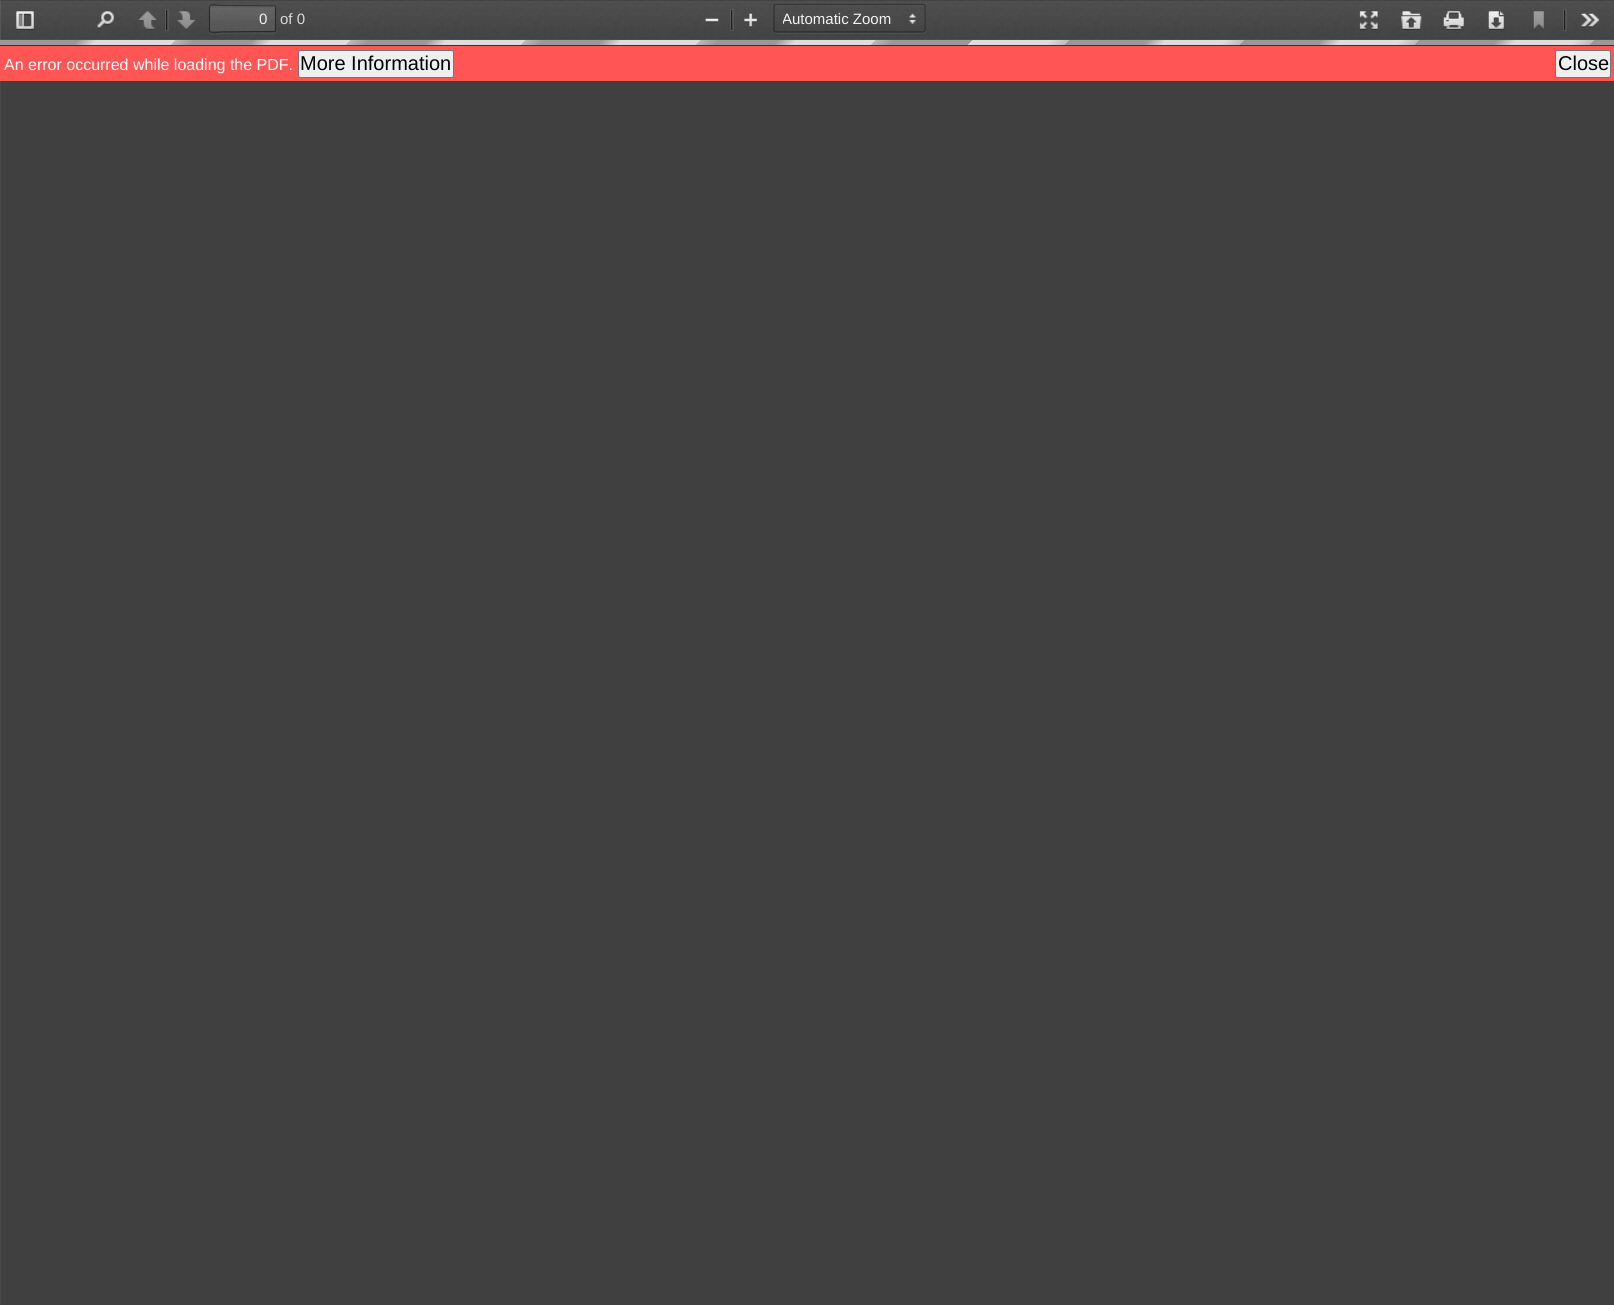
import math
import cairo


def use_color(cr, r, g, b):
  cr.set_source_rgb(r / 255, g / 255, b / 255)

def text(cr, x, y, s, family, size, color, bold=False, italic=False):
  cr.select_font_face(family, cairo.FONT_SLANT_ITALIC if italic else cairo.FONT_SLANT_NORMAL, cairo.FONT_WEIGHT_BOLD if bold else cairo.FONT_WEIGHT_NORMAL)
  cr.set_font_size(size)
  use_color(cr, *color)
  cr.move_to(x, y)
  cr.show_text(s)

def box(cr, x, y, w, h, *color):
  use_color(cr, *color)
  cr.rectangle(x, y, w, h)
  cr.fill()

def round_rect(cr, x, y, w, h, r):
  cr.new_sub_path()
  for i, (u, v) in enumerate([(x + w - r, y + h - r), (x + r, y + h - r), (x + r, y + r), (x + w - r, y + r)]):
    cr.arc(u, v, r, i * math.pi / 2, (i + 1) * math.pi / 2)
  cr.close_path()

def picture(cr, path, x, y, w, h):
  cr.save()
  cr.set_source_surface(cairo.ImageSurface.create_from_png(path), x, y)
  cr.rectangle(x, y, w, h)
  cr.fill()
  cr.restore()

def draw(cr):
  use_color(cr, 64, 64, 64)
  cr.paint()
  picture(cr, "img_01.png", 0, 0, 1614, 40)
  cr.set_source_rgba(1, 1, 1, 0.05)
  cr.rectangle(0, 39, 1614, 1)
  cr.fill()
  cr.set_source_rgba(0, 0, 0, 0.15)
  cr.rectangle(0, 0, 1614, 1)
  cr.fill()
  cr.set_source_rgba(1, 1, 1, 0.08)
  cr.rectangle(0, 0, 1, 40)
  cr.fill()
  picture(cr, "img_02.png", 16, 11, 18, 19)
  picture(cr, "img_03.png", 97, 11, 17, 18)
  picture(cr, "img_04.png", 138, 11, 19, 19)
  cr.rectangle(165.5, 9.5, 3, 21)
  cr.set_line_width(1)
  cr.stroke()
  cr.set_source_rgba(0, 0, 0, 0.5)
  cr.rectangle(166, 10, 1, 20)
  cr.fill()
  picture(cr, "img_05.png", 177, 11, 19, 19)
  cr.set_source_rgba(1, 1, 1, 0.05)
  cr.new_path()
  cr.move_to(209, 31)
  cr.curve_to(209, 37, 220, 34, 222, 34)
  cr.line_to(263, 34)
  cr.curve_to(265, 34, 276, 37, 276, 31)
  cr.curve_to(274, 34, 265, 32, 263, 32)
  cr.line_to(211, 32)
  cr.close_path()
  cr.fill()
  cr.set_source_rgba(1, 1, 1, 0.09)
  cr.rectangle(210, 6, 65, 25)
  cr.fill()
  gradient = cairo.LinearGradient(243, 6.2, 243, 31)
  gradient.add_color_stop_rgba(0, 1, 1, 1, 0.05)
  gradient.add_color_stop_rgba(1, 1, 1, 1, 0)
  cr.set_source(gradient)
  cr.rectangle(210, 6, 65, 14)
  cr.fill()
  cr.set_source_rgba(0, 0, 0, 0.05)
  cr.new_path()
  cr.move_to(211, 8)
  cr.line_to(274, 8)
  cr.line_to(275, 9)
  cr.curve_to(275, 3, 271, 6, 264, 6)
  cr.line_to(222, 6)
  cr.curve_to(214, 6, 210, 3, 210, 9)
  cr.close_path()
  cr.fill()
  cr.new_path()
  cr.move_to(210, 6)
  cr.curve_to(212.5, 3.5, 217.5, 5.5, 221.5, 5.5)
  cr.line_to(275, 6)
  cr.set_source_rgba(0, 0, 0, 0.32)
  cr.set_line_width(1.2)
  cr.stroke()
  cr.new_path()
  cr.move_to(275, 6)
  cr.line_to(275.5, 7.5)
  cr.line_to(275.5, 30)
  cr.line_to(275, 31.5)
  cr.set_source_rgba(0, 0, 0, 0.38)
  cr.stroke()
  cr.new_path()
  cr.move_to(275, 31.5)
  cr.line_to(221.5, 32)
  cr.curve_to(217.5, 32, 212.5, 34, 210, 31.5)
  cr.set_source_rgba(0, 0, 0, 0.42)
  cr.stroke()
  cr.new_path()
  cr.move_to(210, 31.5)
  cr.line_to(209.5, 30)
  cr.line_to(209.5, 7.5)
  cr.line_to(210, 6)
  cr.set_source_rgba(0, 0, 0, 0.38)
  cr.stroke()
  picture(cr, "img_06.png", 705, 18, 14, 5)
  cr.rectangle(730.5, 9.5, 3, 21)
  cr.set_source_rgba(1, 1, 1, 0.08)
  cr.set_line_width(1)
  cr.stroke()
  cr.set_source_rgba(0, 0, 0, 0.5)
  cr.rectangle(731, 10, 1, 20)
  cr.fill()
  picture(cr, "img_07.png", 744, 13, 14, 15)
  cr.set_source_rgba(1, 1, 1, 0.05)
  cr.new_path()
  cr.move_to(774, 32)
  cr.curve_to(774, 33, 775, 34, 776, 34)
  cr.line_to(924, 34)
  cr.curve_to(925, 34, 926, 33, 926, 32)
  cr.line_to(926, 8)
  cr.line_to(926, 6)
  cr.line_to(926, 26)
  cr.curve_to(926, 28, 926, 32, 923, 32)
  cr.line_to(775, 32)
  cr.close_path()
  cr.fill()
  picture(cr, "img_08.png", 909, 13, 7, 11)
  cr.new_path()
  cr.move_to(776, 6)
  cr.line_to(923, 6)
  cr.curve_to(924, 6, 924, 7, 924, 8)
  cr.line_to(924, 31)
  cr.curve_to(926, 31, 925, 21, 925, 6)
  cr.line_to(924, 5)
  cr.line_to(776, 5)
  cr.curve_to(775, 5, 775, 6, 775, 6)
  cr.close_path()
  cr.fill()
  cr.new_path()
  cr.move_to(774.5, 5)
  cr.line_to(775.5, 4.5)
  cr.line_to(923, 4.5)
  cr.line_to(924.5, 5)
  cr.set_source_rgba(0, 0, 0, 0.32)
  cr.set_line_width(1.2)
  cr.stroke()
  cr.new_path()
  cr.move_to(924.5, 5)
  cr.line_to(925, 6)
  cr.line_to(925, 30)
  cr.line_to(924.5, 31.5)
  cr.set_source_rgba(0, 0, 0, 0.38)
  cr.stroke()
  cr.new_path()
  cr.move_to(924.5, 31.5)
  cr.line_to(923, 32)
  cr.line_to(775.5, 32)
  cr.line_to(774.5, 31.5)
  cr.set_source_rgba(0, 0, 0, 0.42)
  cr.stroke()
  cr.new_path()
  cr.move_to(774.5, 31.5)
  cr.line_to(774, 30)
  cr.line_to(774, 6.5)
  cr.line_to(774.5, 5)
  cr.set_source_rgba(0, 0, 0, 0.38)
  cr.stroke()
  picture(cr, "img_09.png", 1359, 11, 19, 19)
  picture(cr, "img_10.png", 1401, 11, 21, 19)
  picture(cr, "img_11.png", 1443, 11, 21, 19)
  picture(cr, "img_12.png", 1488, 11, 16, 19)
  picture(cr, "img_13.png", 1533, 11, 11, 19)
  cr.rectangle(1563.5, 9.5, 3, 21)
  cr.set_source_rgba(1, 1, 1, 0.08)
  cr.set_line_width(1)
  cr.stroke()
  cr.set_source_rgba(0, 0, 0, 0.5)
  cr.rectangle(1564, 10, 1, 20)
  cr.fill()
  picture(cr, "img_14.png", 1581, 13, 19, 15)
  box(cr, 0, 45, 1614, 1, 51, 51, 51)
  gradient = cairo.LinearGradient(449, -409, 1422, 563)
  gradient.add_color_stop_rgba(0, 0.733, 0.733, 0.733, 1)
  gradient.add_color_stop_rgba(0, 0.6, 0.6, 0.6, 1)
  gradient.add_color_stop_rgba(0.04, 0.6, 0.6, 0.6, 1)
  gradient.add_color_stop_rgba(0.05, 0.867, 0.867, 0.867, 1)
  gradient.add_color_stop_rgba(0.09, 0.867, 0.867, 0.867, 1)
  gradient.add_color_stop_rgba(0.09, 0.733, 0.733, 0.733, 1)
  gradient.add_color_stop_rgba(0.1, 0.6, 0.6, 0.6, 1)
  gradient.add_color_stop_rgba(0.13, 0.6, 0.6, 0.6, 1)
  gradient.add_color_stop_rgba(0.14, 0.867, 0.867, 0.867, 1)
  gradient.add_color_stop_rgba(0.18, 0.867, 0.867, 0.867, 1)
  gradient.add_color_stop_rgba(0.18, 0.733, 0.733, 0.733, 1)
  gradient.add_color_stop_rgba(0.19, 0.6, 0.6, 0.6, 1)
  gradient.add_color_stop_rgba(0.22, 0.6, 0.6, 0.6, 1)
  gradient.add_color_stop_rgba(0.23, 0.867, 0.867, 0.867, 1)
  gradient.add_color_stop_rgba(0.27, 0.867, 0.867, 0.867, 1)
  gradient.add_color_stop_rgba(0.27, 0.733, 0.733, 0.733, 1)
  gradient.add_color_stop_rgba(0.28, 0.6, 0.6, 0.6, 1)
  gradient.add_color_stop_rgba(0.31, 0.6, 0.6, 0.6, 1)
  gradient.add_color_stop_rgba(0.32, 0.867, 0.867, 0.867, 1)
  gradient.add_color_stop_rgba(0.36, 0.867, 0.867, 0.867, 1)
  gradient.add_color_stop_rgba(0.36, 0.733, 0.733, 0.733, 1)
  gradient.add_color_stop_rgba(0.37, 0.6, 0.6, 0.6, 1)
  gradient.add_color_stop_rgba(0.4, 0.6, 0.6, 0.6, 1)
  gradient.add_color_stop_rgba(0.41, 0.867, 0.867, 0.867, 1)
  gradient.add_color_stop_rgba(0.45, 0.867, 0.867, 0.867, 1)
  gradient.add_color_stop_rgba(0.45, 0.733, 0.733, 0.733, 1)
  gradient.add_color_stop_rgba(0.46, 0.6, 0.6, 0.6, 1)
  gradient.add_color_stop_rgba(0.5, 0.6, 0.6, 0.6, 1)
  gradient.add_color_stop_rgba(0.5, 0.867, 0.867, 0.867, 1)
  gradient.add_color_stop_rgba(0.54, 0.867, 0.867, 0.867, 1)
  gradient.add_color_stop_rgba(0.55, 0.733, 0.733, 0.733, 1)
  gradient.add_color_stop_rgba(0.55, 0.6, 0.6, 0.6, 1)
  gradient.add_color_stop_rgba(0.59, 0.6, 0.6, 0.6, 1)
  gradient.add_color_stop_rgba(0.6, 0.867, 0.867, 0.867, 1)
  gradient.add_color_stop_rgba(0.63, 0.867, 0.867, 0.867, 1)
  gradient.add_color_stop_rgba(0.64, 0.733, 0.733, 0.733, 1)
  gradient.add_color_stop_rgba(0.64, 0.6, 0.6, 0.6, 1)
  gradient.add_color_stop_rgba(0.68, 0.6, 0.6, 0.6, 1)
  gradient.add_color_stop_rgba(0.69, 0.867, 0.867, 0.867, 1)
  gradient.add_color_stop_rgba(0.72, 0.867, 0.867, 0.867, 1)
  gradient.add_color_stop_rgba(0.73, 0.733, 0.733, 0.733, 1)
  gradient.add_color_stop_rgba(0.73, 0.6, 0.6, 0.6, 1)
  gradient.add_color_stop_rgba(0.77, 0.6, 0.6, 0.6, 1)
  gradient.add_color_stop_rgba(0.78, 0.867, 0.867, 0.867, 1)
  gradient.add_color_stop_rgba(0.81, 0.867, 0.867, 0.867, 1)
  gradient.add_color_stop_rgba(0.82, 0.733, 0.733, 0.733, 1)
  gradient.add_color_stop_rgba(0.82, 0.6, 0.6, 0.6, 1)
  gradient.add_color_stop_rgba(0.86, 0.6, 0.6, 0.6, 1)
  gradient.add_color_stop_rgba(0.87, 0.867, 0.867, 0.867, 1)
  gradient.add_color_stop_rgba(0.9, 0.867, 0.867, 0.867, 1)
  gradient.add_color_stop_rgba(0.91, 0.733, 0.733, 0.733, 1)
  gradient.add_color_stop_rgba(0.91, 0.6, 0.6, 0.6, 1)
  gradient.add_color_stop_rgba(0.95, 0.6, 0.6, 0.6, 1)
  gradient.add_color_stop_rgba(0.96, 0.867, 0.867, 0.867, 1)
  gradient.add_color_stop_rgba(1, 0.867, 0.867, 0.867, 1)
  gradient.add_color_stop_rgba(1, 0.733, 0.733, 0.733, 1)
  cr.set_source(gradient)
  cr.rectangle(0, 40, 1614, 5)
  cr.fill()
  box(cr, 0, 46, 1614, 35, 255, 85, 85)
  use_color(cr, 239, 239, 239)
  round_rect(cr, 298.5, 50.5, 155, 27, 2)
  cr.fill_preserve()
  use_color(cr, 118, 118, 118)
  cr.stroke()
  use_color(cr, 239, 239, 239)
  round_rect(cr, 1555.5, 50.5, 55, 27, 2)
  cr.fill_preserve()
  use_color(cr, 118, 118, 118)
  cr.stroke()
  box(cr, 0, 81, 1, 1224, 74, 74, 74)
  text(cr, 259, 24, "0", "Liberation Sans", 15, (242, 242, 242))
  text(cr, 280, 24, "of 0", "Liberation Sans", 15, (217, 217, 217))
  cr.save()
  cr.rectangle(783, 9, 147, 20)
  cr.clip()
  text(cr, 782, 24, "Automatic Zoom", "Liberation Sans", 15, (242, 242, 242))
  cr.restore()
  text(cr, 4, 70, "An error occurred while loading the PDF.", "Liberation Sans", 16, (255, 255, 255))
  text(cr, 300, 70, "More Information", "Liberation Sans", 20, (0, 0, 0))
  text(cr, 1558, 70, "Close", "Liberation Sans", 20, (0, 0, 0))


surface = cairo.ImageSurface(cairo.FORMAT_RGB24, 1614, 1305)
cr = cairo.Context(surface)
options = cairo.FontOptions()
options.set_hint_metrics(cairo.HINT_METRICS_OFF)
options.set_hint_style(cairo.HINT_STYLE_NONE)
cr.set_font_options(options)
cr.set_miter_limit(4)
draw(cr)
surface.write_to_png("out.png")
